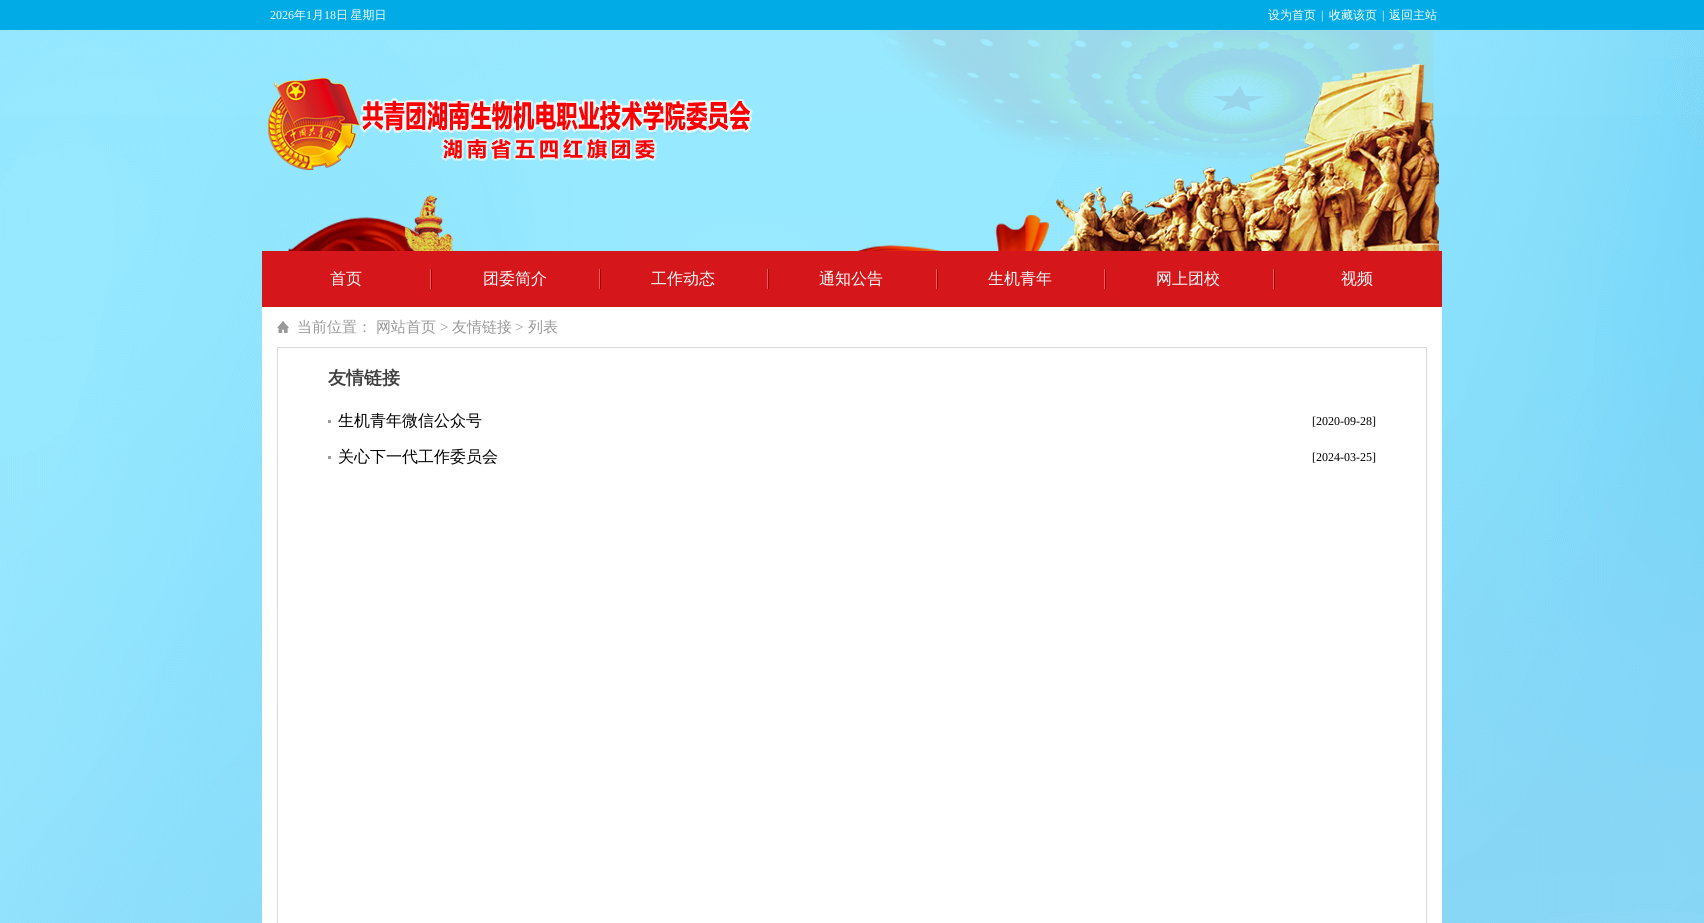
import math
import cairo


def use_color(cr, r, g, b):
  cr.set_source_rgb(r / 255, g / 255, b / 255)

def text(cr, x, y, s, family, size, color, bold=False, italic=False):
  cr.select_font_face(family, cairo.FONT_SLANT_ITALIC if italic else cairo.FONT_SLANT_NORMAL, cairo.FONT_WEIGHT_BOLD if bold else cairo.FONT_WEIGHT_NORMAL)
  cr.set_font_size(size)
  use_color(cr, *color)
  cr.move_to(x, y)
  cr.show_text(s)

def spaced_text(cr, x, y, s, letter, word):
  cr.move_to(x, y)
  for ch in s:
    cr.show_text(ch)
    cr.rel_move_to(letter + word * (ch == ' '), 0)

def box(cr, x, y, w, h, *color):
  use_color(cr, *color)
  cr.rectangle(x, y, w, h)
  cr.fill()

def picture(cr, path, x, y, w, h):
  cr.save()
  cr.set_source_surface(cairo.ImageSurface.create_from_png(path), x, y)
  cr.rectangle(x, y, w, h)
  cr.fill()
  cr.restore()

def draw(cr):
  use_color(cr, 255, 255, 255)
  cr.paint()
  picture(cr, "img_01.png", 0, 30, 1704, 893)
  box(cr, 0, 0, 1704, 30, 0, 171, 230)
  picture(cr, "img_02.png", 288, 30, 1151, 221)
  picture(cr, "img_03.png", 268, 78, 485, 92)
  box(cr, 262, 251, 1180, 56, 213, 22, 26)
  picture(cr, "img_04.png", 430, 269, 2, 20)
  picture(cr, "img_04.png", 599, 269, 2, 20)
  picture(cr, "img_04.png", 767, 269, 2, 20)
  picture(cr, "img_04.png", 936, 269, 2, 20)
  picture(cr, "img_04.png", 1104, 269, 2, 20)
  picture(cr, "img_04.png", 1273, 269, 2, 20)
  box(cr, 262, 307, 1180, 616, 255, 255, 255)
  picture(cr, "img_05.png", 277, 321, 12, 12)
  cr.rectangle(277.5, 347.5, 1149, 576)
  use_color(cr, 217, 217, 217)
  cr.set_line_width(1)
  cr.stroke()
  box(cr, 328, 420, 3, 3, 153, 153, 153)
  box(cr, 328, 456, 3, 3, 153, 153, 153)
  text(cr, 270, 19, "2026", "Liberation Serif", 12, (255, 255, 255))
  text(cr, 294, 19, "年", "WenQuanYi Zen Hei Medium", 12, (255, 255, 255))
  text(cr, 306, 19, "1", "Liberation Serif", 12, (255, 255, 255))
  text(cr, 312, 19, "月", "WenQuanYi Zen Hei Medium", 12, (255, 255, 255))
  text(cr, 324, 19, "18", "Liberation Serif", 12, (255, 255, 255))
  cr.select_font_face("WenQuanYi Zen Hei Medium")
  spaced_text(cr, 336, 19, "日 星期日", 0, -1)
  text(cr, 1268, 19, "设为首页", "WenQuanYi Zen Hei Medium", 12, (255, 255, 255))
  text(cr, 1321, 19, "|", "Liberation Serif", 12, (255, 255, 255))
  text(cr, 1329, 19, "收藏该页", "WenQuanYi Zen Hei Medium", 12, (255, 255, 255))
  text(cr, 1382, 19, "|", "Liberation Serif", 12, (255, 255, 255))
  text(cr, 1389, 19, "返回主站", "WenQuanYi Zen Hei Medium", 12, (255, 255, 255))
  text(cr, 330, 284, "首页", "WenQuanYi Zen Hei Medium", 16, (255, 255, 255))
  text(cr, 483, 284, "团委简介", "WenQuanYi Zen Hei Medium", 16, (255, 255, 255))
  text(cr, 651, 284, "工作动态", "WenQuanYi Zen Hei Medium", 16, (255, 255, 255))
  text(cr, 819, 284, "通知公告", "WenQuanYi Zen Hei Medium", 16, (255, 255, 255))
  text(cr, 988, 284, "生机青年", "WenQuanYi Zen Hei Medium", 16, (255, 255, 255))
  text(cr, 1156, 284, "网上团校", "WenQuanYi Zen Hei Medium", 16, (255, 255, 255))
  text(cr, 1341, 284, "视频", "WenQuanYi Zen Hei Medium", 16, (255, 255, 255))
  text(cr, 297, 332, "当前位置：", "WenQuanYi Zen Hei Medium", 15, (153, 153, 153))
  text(cr, 376, 332, "网站首页", "WenQuanYi Zen Hei Medium", 15, (153, 153, 153))
  text(cr, 440, 332, ">", "Liberation Serif", 15, (153, 153, 153))
  text(cr, 452, 332, "友情链接", "WenQuanYi Zen Hei Medium", 15, (153, 153, 153))
  text(cr, 515, 332, ">", "Liberation Serif", 15, (153, 153, 153))
  text(cr, 528, 332, "列表", "WenQuanYi Zen Hei Medium", 15, (153, 153, 153))
  text(cr, 328, 384, "友情链接", "WenQuanYi Zen Hei", 18, (63, 63, 63), bold=True)
  text(cr, 338, 426, "生机青年微信公众号", "WenQuanYi Zen Hei Medium", 16, (0, 0, 0))
  text(cr, 1312, 425, "[2020-09-28]", "Liberation Serif", 12, (0, 0, 0))
  text(cr, 338, 462, "关心下一代工作委员会", "WenQuanYi Zen Hei Medium", 16, (0, 0, 0))
  text(cr, 1312, 461, "[2024-03-25]", "Liberation Serif", 12, (0, 0, 0))


surface = cairo.ImageSurface(cairo.FORMAT_RGB24, 1704, 923)
cr = cairo.Context(surface)
options = cairo.FontOptions()
options.set_hint_metrics(cairo.HINT_METRICS_OFF)
options.set_hint_style(cairo.HINT_STYLE_NONE)
cr.set_font_options(options)
cr.set_miter_limit(4)
draw(cr)
surface.write_to_png("out.png")
